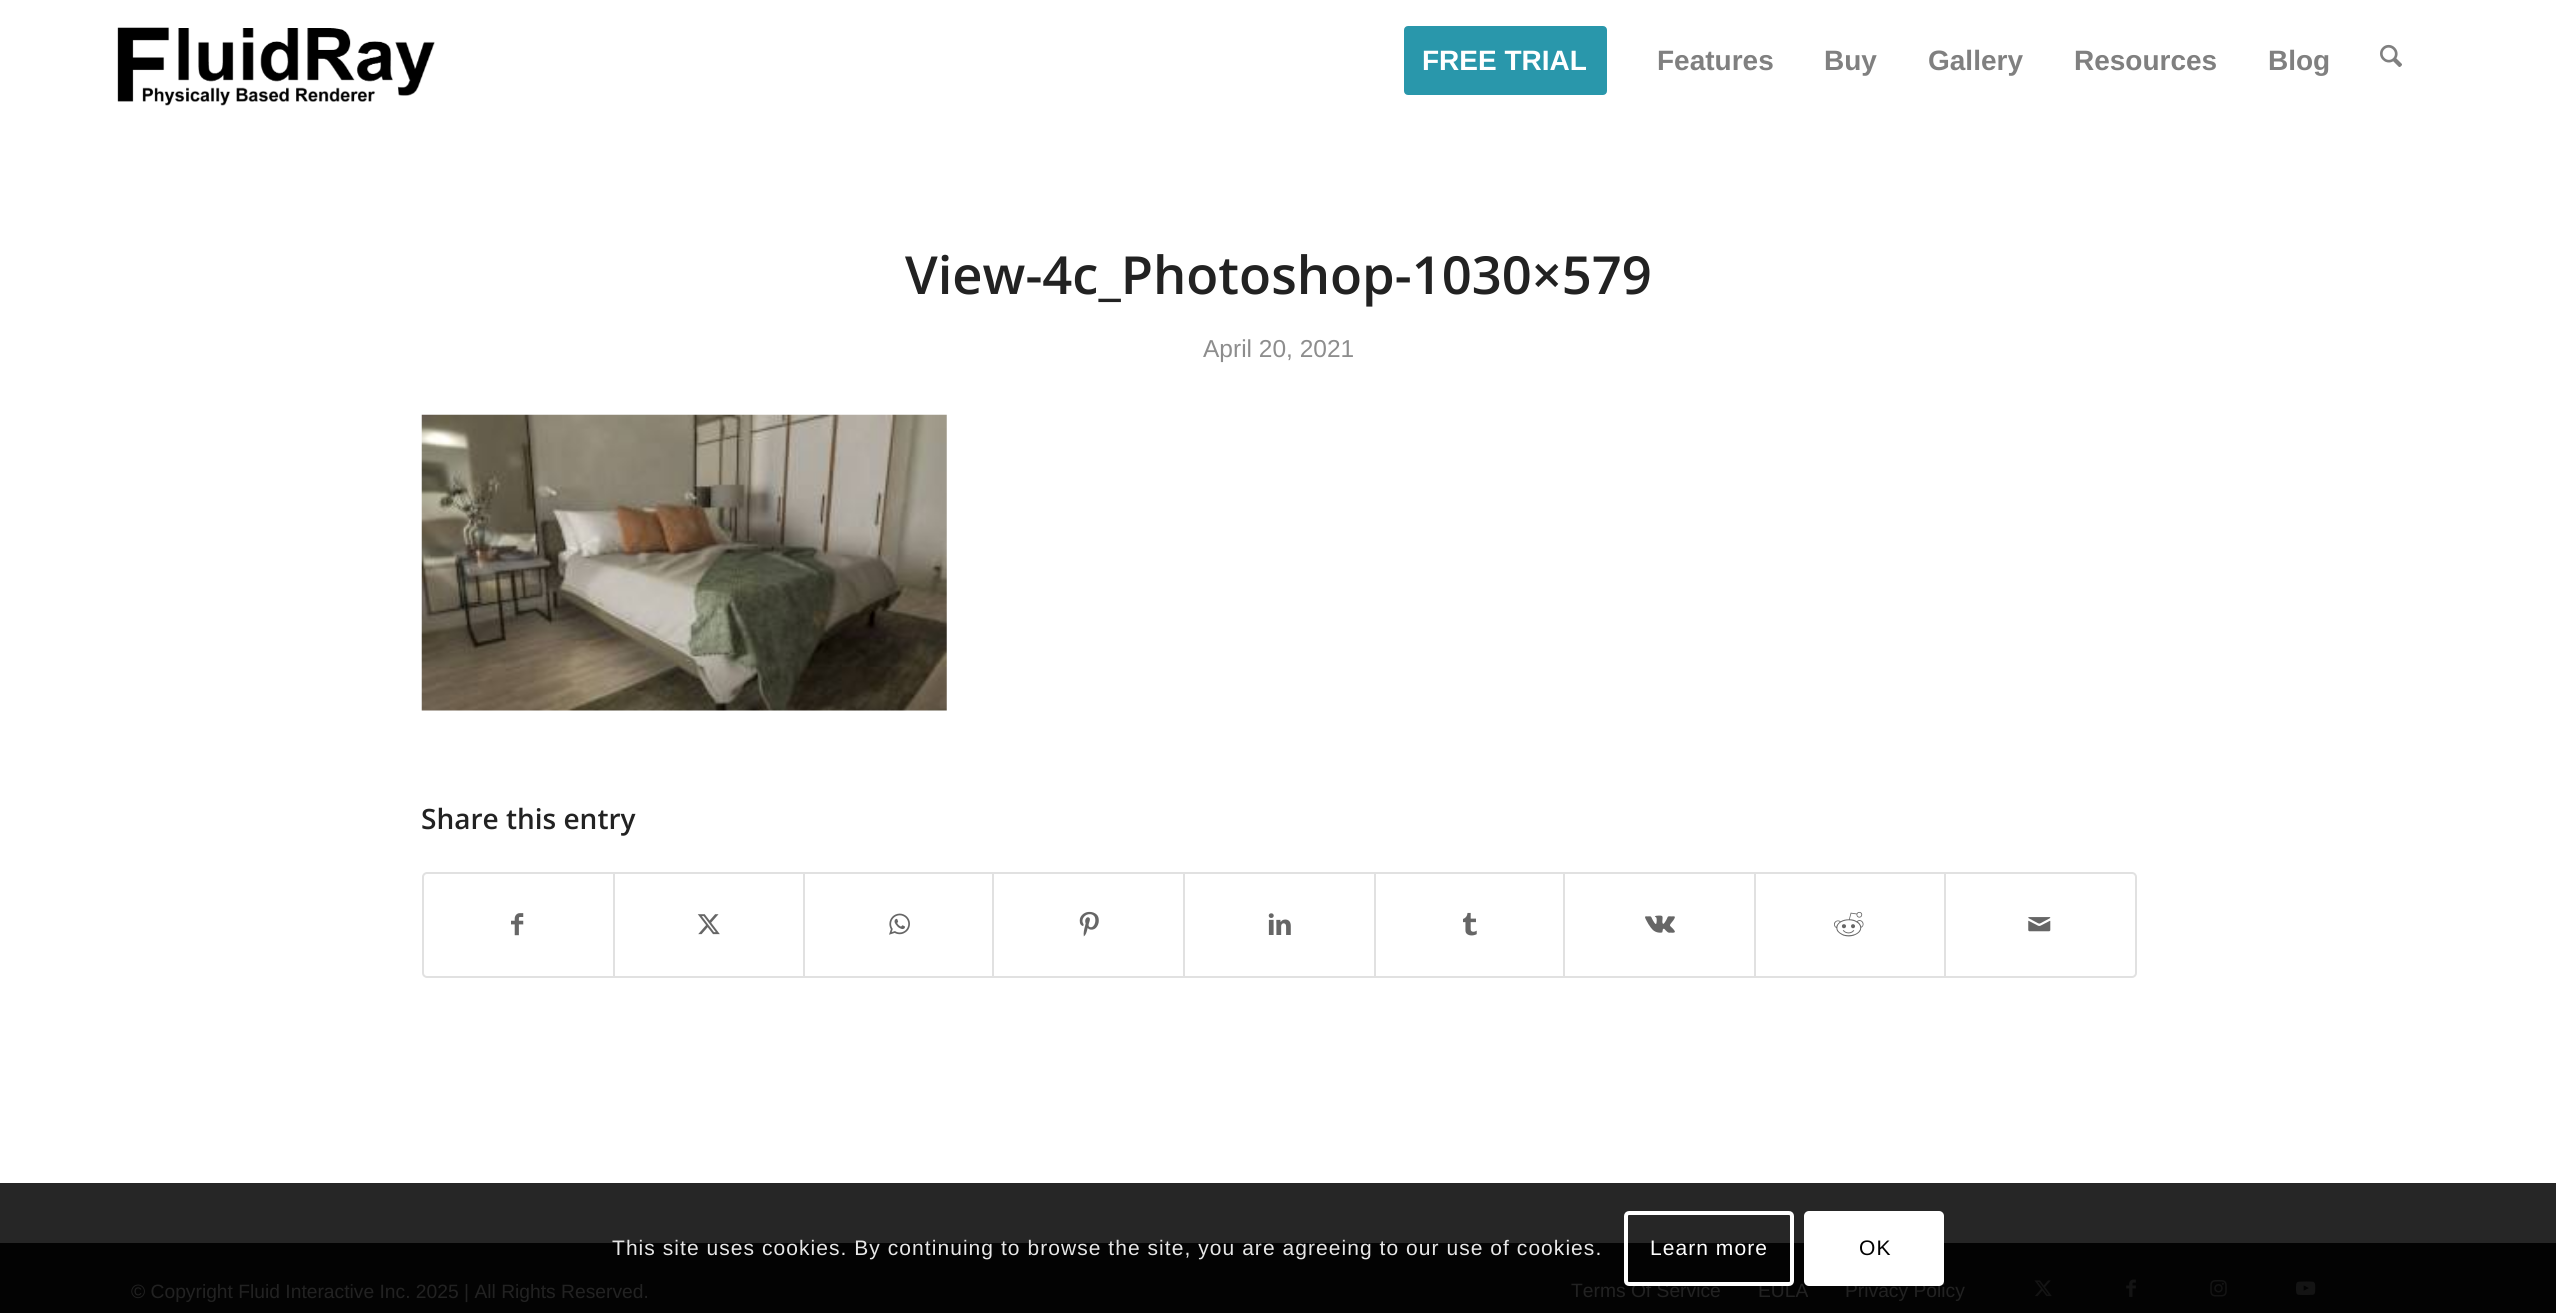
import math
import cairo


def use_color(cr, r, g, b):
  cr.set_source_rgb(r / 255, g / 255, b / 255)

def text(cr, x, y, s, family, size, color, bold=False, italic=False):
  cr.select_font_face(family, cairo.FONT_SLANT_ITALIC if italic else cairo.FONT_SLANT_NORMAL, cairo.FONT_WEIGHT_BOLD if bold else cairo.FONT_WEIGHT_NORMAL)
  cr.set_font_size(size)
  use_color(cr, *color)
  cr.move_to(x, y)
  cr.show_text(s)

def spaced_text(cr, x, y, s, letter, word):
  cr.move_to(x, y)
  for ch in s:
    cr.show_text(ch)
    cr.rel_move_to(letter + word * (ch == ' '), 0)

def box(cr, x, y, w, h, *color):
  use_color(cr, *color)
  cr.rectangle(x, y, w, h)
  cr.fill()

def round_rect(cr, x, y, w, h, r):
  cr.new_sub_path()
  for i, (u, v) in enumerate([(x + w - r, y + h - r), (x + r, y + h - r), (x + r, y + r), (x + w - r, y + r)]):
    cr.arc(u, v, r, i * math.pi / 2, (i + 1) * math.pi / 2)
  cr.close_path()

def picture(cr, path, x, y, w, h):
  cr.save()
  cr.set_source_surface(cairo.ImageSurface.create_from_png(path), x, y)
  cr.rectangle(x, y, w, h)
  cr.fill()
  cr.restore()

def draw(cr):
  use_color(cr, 255, 255, 255)
  cr.paint()
  box(cr, 0, 1183, 2556, 60, 38, 38, 38)
  picture(cr, "img_01.png", 117, 27, 318, 79)
  use_color(cr, 41, 151, 171)
  round_rect(cr, 1406, 28, 199, 65, 2)
  cr.fill_preserve()
  cr.set_line_width(4)
  cr.stroke()
  picture(cr, "img_02.png", 2380, 44, 22, 23)
  picture(cr, "img_03.png", 421, 414, 526, 297)
  round_rect(cr, 423, 873, 1713, 104, 4)
  use_color(cr, 225, 225, 225)
  cr.set_line_width(2)
  cr.stroke()
  picture(cr, "img_04.png", 511, 913, 13, 23)
  box(cr, 613, 873, 2, 104, 225, 225, 225)
  picture(cr, "img_05.png", 697, 914, 23, 21)
  box(cr, 803, 873, 2, 104, 225, 225, 225)
  picture(cr, "img_06.png", 889, 913, 21, 22)
  box(cr, 992, 873, 2, 104, 225, 225, 225)
  picture(cr, "img_07.png", 1079, 911, 20, 26)
  box(cr, 1183, 873, 2, 104, 225, 225, 225)
  picture(cr, "img_08.png", 1268, 913, 23, 22)
  box(cr, 1374, 873, 2, 104, 225, 225, 225)
  picture(cr, "img_09.png", 1463, 912, 14, 24)
  box(cr, 1563, 873, 2, 104, 225, 225, 225)
  picture(cr, "img_10.png", 1645, 915, 30, 18)
  box(cr, 1754, 873, 2, 104, 225, 225, 225)
  picture(cr, "img_11.png", 1834, 911, 30, 26)
  box(cr, 1944, 873, 2, 104, 225, 225, 225)
  picture(cr, "img_12.png", 2028, 917, 23, 15)
  box(cr, 0, 1243, 2556, 70, 3, 3, 3)
  picture(cr, "img_13.png", 2034, 1280, 18, 17)
  picture(cr, "img_14.png", 2126, 1279, 10, 18)
  picture(cr, "img_15.png", 2210, 1280, 17, 17)
  picture(cr, "img_16.png", 2296, 1281, 20, 14)
  text(cr, 1422, 70, "FREE TRIAL", "Liberation Sans", 28, (255, 255, 255), bold=True)
  text(cr, 1657, 70, "Features", "Liberation Sans", 28, (128, 128, 128), bold=True)
  text(cr, 1824, 70, "Buy", "Liberation Sans", 28, (128, 128, 128), bold=True)
  text(cr, 1928, 70, "Gallery", "Liberation Sans", 28, (128, 128, 128), bold=True)
  text(cr, 2074, 70, "Resources", "Liberation Sans", 28, (128, 128, 128), bold=True)
  text(cr, 2268, 70, "Blog", "Liberation Sans", 28, (128, 128, 128), bold=True)
  text(cr, 905, 294, "View-4c_Photoshop-1030×579", "Open Sans SemiBold", 52.5, (34, 34, 34))
  text(cr, 1203, 357, "April 20, 2021", "Liberation Sans", 24.5, (141, 141, 141))
  text(cr, 421, 829, "Share this entry", "Open Sans SemiBold", 28, (34, 34, 34))
  text(cr, 131, 1298, "© Copyright Fluid Interactive Inc. 2025 | All Rights Reserved.", "Liberation Sans", 19.25, (34, 34, 34))
  text(cr, 1571, 1297, "Terms Of Service", "Liberation Sans", 19.25, (34, 34, 34))
  text(cr, 1758, 1297, "EULA", "Liberation Sans", 19.25, (34, 34, 34))
  text(cr, 1845, 1297, "Privacy Policy", "Liberation Sans", 19.25, (34, 34, 34))
  cr.set_font_size(21)
  use_color(cr, 230, 230, 230)
  spaced_text(cr, 612, 1255, "This site uses cookies. By continuing to browse the site, you are agreeing to our use of cookies.", 1.05, 0)
  round_rect(cr, 1626, 1213, 166, 71, 3)
  use_color(cr, 255, 255, 255)
  cr.set_line_width(4)
  cr.stroke()
  spaced_text(cr, 1650, 1255, "Learn more", 1.05, 0)
  round_rect(cr, 1804, 1211, 140, 75, 5)
  cr.fill()
  use_color(cr, 0, 0, 0)
  spaced_text(cr, 1859, 1255, "OK", 1.05, 0)


surface = cairo.ImageSurface(cairo.FORMAT_RGB24, 2556, 1313)
cr = cairo.Context(surface)
options = cairo.FontOptions()
options.set_hint_metrics(cairo.HINT_METRICS_OFF)
options.set_hint_style(cairo.HINT_STYLE_NONE)
cr.set_font_options(options)
cr.set_miter_limit(4)
draw(cr)
surface.write_to_png("out.png")
